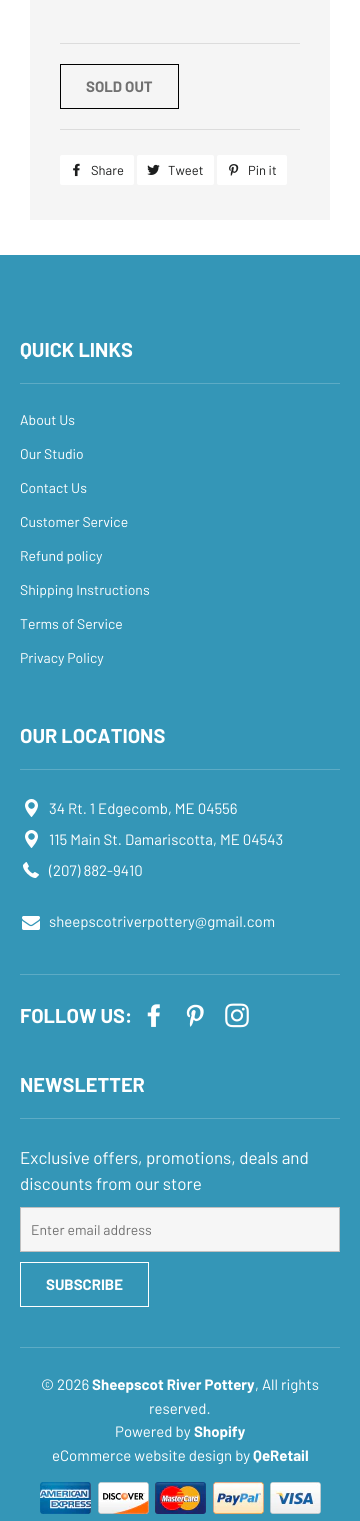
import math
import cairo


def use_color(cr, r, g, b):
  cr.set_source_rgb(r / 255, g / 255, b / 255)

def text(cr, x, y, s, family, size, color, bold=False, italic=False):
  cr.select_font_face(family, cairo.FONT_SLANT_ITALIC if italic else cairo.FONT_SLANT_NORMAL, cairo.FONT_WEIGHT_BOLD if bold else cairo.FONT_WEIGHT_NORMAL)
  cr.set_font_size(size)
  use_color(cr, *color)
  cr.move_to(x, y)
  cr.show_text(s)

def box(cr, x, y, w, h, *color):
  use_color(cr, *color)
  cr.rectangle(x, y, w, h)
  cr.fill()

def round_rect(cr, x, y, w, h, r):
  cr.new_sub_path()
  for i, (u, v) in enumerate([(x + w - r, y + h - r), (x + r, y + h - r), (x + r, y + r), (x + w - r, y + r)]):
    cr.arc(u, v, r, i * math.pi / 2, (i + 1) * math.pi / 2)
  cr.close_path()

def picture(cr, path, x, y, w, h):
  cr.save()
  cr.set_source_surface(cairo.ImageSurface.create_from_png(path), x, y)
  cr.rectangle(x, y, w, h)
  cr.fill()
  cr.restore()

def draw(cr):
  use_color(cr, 255, 255, 255)
  cr.paint()
  box(cr, 30, 0, 300, 220, 245, 245, 245)
  box(cr, 60, 43, 240, 1, 220, 220, 220)
  box(cr, 60, 129, 240, 1, 220, 220, 220)
  cr.rectangle(60.5, 64.5, 118, 44)
  use_color(cr, 0, 0, 0)
  cr.set_line_width(1)
  cr.stroke()
  use_color(cr, 255, 255, 255)
  round_rect(cr, 60, 155, 74, 30, 2)
  cr.fill()
  picture(cr, "img_01.png", 73, 163, 7, 14)
  round_rect(cr, 137, 155, 77, 30, 2)
  cr.fill()
  picture(cr, "img_02.png", 147, 164, 13, 11)
  round_rect(cr, 217, 155, 70, 30, 2)
  cr.fill()
  picture(cr, "img_03.png", 229, 164, 10, 12)
  box(cr, 0, 255, 360, 1266, 52, 150, 183)
  box(cr, 20, 383, 320, 1, 93, 171, 197)
  box(cr, 20, 769, 320, 1, 93, 171, 197)
  picture(cr, "img_04.png", 25, 799, 13, 18)
  picture(cr, "img_04.png", 25, 830, 13, 18)
  picture(cr, "img_05.png", 23, 862, 16, 16)
  picture(cr, "img_06.png", 22, 916, 18, 14)
  box(cr, 20, 974, 320, 1, 93, 171, 197)
  picture(cr, "img_07.png", 147, 1004, 13, 23)
  picture(cr, "img_08.png", 186, 1004, 18, 23)
  picture(cr, "img_09.png", 225, 1003, 24, 25)
  box(cr, 20, 1118, 320, 1, 93, 171, 197)
  use_color(cr, 246, 246, 246)
  cr.rectangle(20.5, 1207.5, 319, 44)
  cr.fill_preserve()
  use_color(cr, 192, 192, 192)
  cr.stroke()
  cr.rectangle(20.5, 1262.5, 128, 44)
  use_color(cr, 255, 255, 255)
  cr.stroke()
  box(cr, 20, 1347, 320, 1, 93, 171, 197)
  picture(cr, "img_10.png", 40, 1482, 281, 32)
  text(cr, 86, 92, "SOLD OUT", "Barlow", 15, (113, 113, 113), bold=True)
  text(cr, 91, 175, "Share", "Barlow", 13, (28, 29, 29))
  text(cr, 168, 175, "Tweet", "Barlow", 13, (28, 29, 29))
  text(cr, 248, 175, "Pin it", "Barlow", 13, (28, 29, 29))
  text(cr, 20, 357, "QUICK LINKS", "Barlow", 20, (255, 255, 255), bold=True)
  text(cr, 20, 425, "About Us", "Barlow", 14, (255, 255, 255))
  text(cr, 20, 459, "Our Studio", "Barlow", 14, (255, 255, 255))
  text(cr, 20, 493, "Contact Us", "Barlow", 14, (255, 255, 255))
  text(cr, 20, 527, "Customer Service", "Barlow", 14, (255, 255, 255))
  text(cr, 20, 561, "Refund policy", "Barlow", 14, (255, 255, 255))
  text(cr, 20, 595, "Shipping Instructions", "Barlow", 14, (255, 255, 255))
  text(cr, 20, 629, "Terms of Service", "Barlow", 14, (255, 255, 255))
  text(cr, 20, 663, "Privacy Policy", "Barlow", 14, (255, 255, 255))
  text(cr, 20, 743, "OUR LOCATIONS", "Barlow", 20, (255, 255, 255), bold=True)
  text(cr, 49, 814, "34 Rt. 1 Edgecomb, ME 04556", "Barlow", 15, (255, 255, 255))
  text(cr, 49, 845, "115 Main St. Damariscotta, ME 04543", "Barlow", 15, (255, 255, 255))
  text(cr, 49, 876, "(207) 882-9410", "Barlow", 15, (255, 255, 255))
  text(cr, 49, 927, "sheepscotriverpottery@gmail.com", "Barlow", 15, (255, 255, 255))
  text(cr, 20, 1023, "FOLLOW US:", "Barlow", 20, (255, 255, 255), bold=True)
  text(cr, 20, 1092, "NEWSLETTER", "Barlow", 20, (255, 255, 255), bold=True)
  text(cr, 20, 1164, "Exclusive offers, promotions, deals and", "Barlow", 17, (255, 255, 255))
  text(cr, 20, 1190, "discounts from our store", "Barlow", 17, (255, 255, 255))
  text(cr, 31, 1235, "Enter email address", "Barlow", 14, (113, 113, 113))
  text(cr, 46, 1290, "SUBSCRIBE", "Barlow", 15, (255, 255, 255), bold=True)
  text(cr, 41, 1390, "© 2026", "Barlow", 15, (255, 255, 255))
  text(cr, 92, 1390, "Sheepscot River Pottery", "Barlow", 15, (255, 255, 255), bold=True)
  text(cr, 255, 1390, ", All rights", "Barlow", 15, (255, 255, 255))
  text(cr, 149, 1414, "reserved.", "Barlow", 15, (255, 255, 255))
  text(cr, 115, 1437, "Powered by", "Barlow", 15, (255, 255, 255))
  text(cr, 194, 1437, "Shopify", "Barlow", 15, (255, 255, 255), bold=True)
  text(cr, 52, 1461, "eCommerce website design by", "Barlow", 15, (255, 255, 255))
  text(cr, 253, 1461, "QeRetail", "Barlow", 15, (255, 255, 255), bold=True)


surface = cairo.ImageSurface(cairo.FORMAT_RGB24, 360, 1521)
cr = cairo.Context(surface)
options = cairo.FontOptions()
options.set_hint_metrics(cairo.HINT_METRICS_OFF)
options.set_hint_style(cairo.HINT_STYLE_NONE)
cr.set_font_options(options)
cr.set_miter_limit(4)
draw(cr)
surface.write_to_png("out.png")
